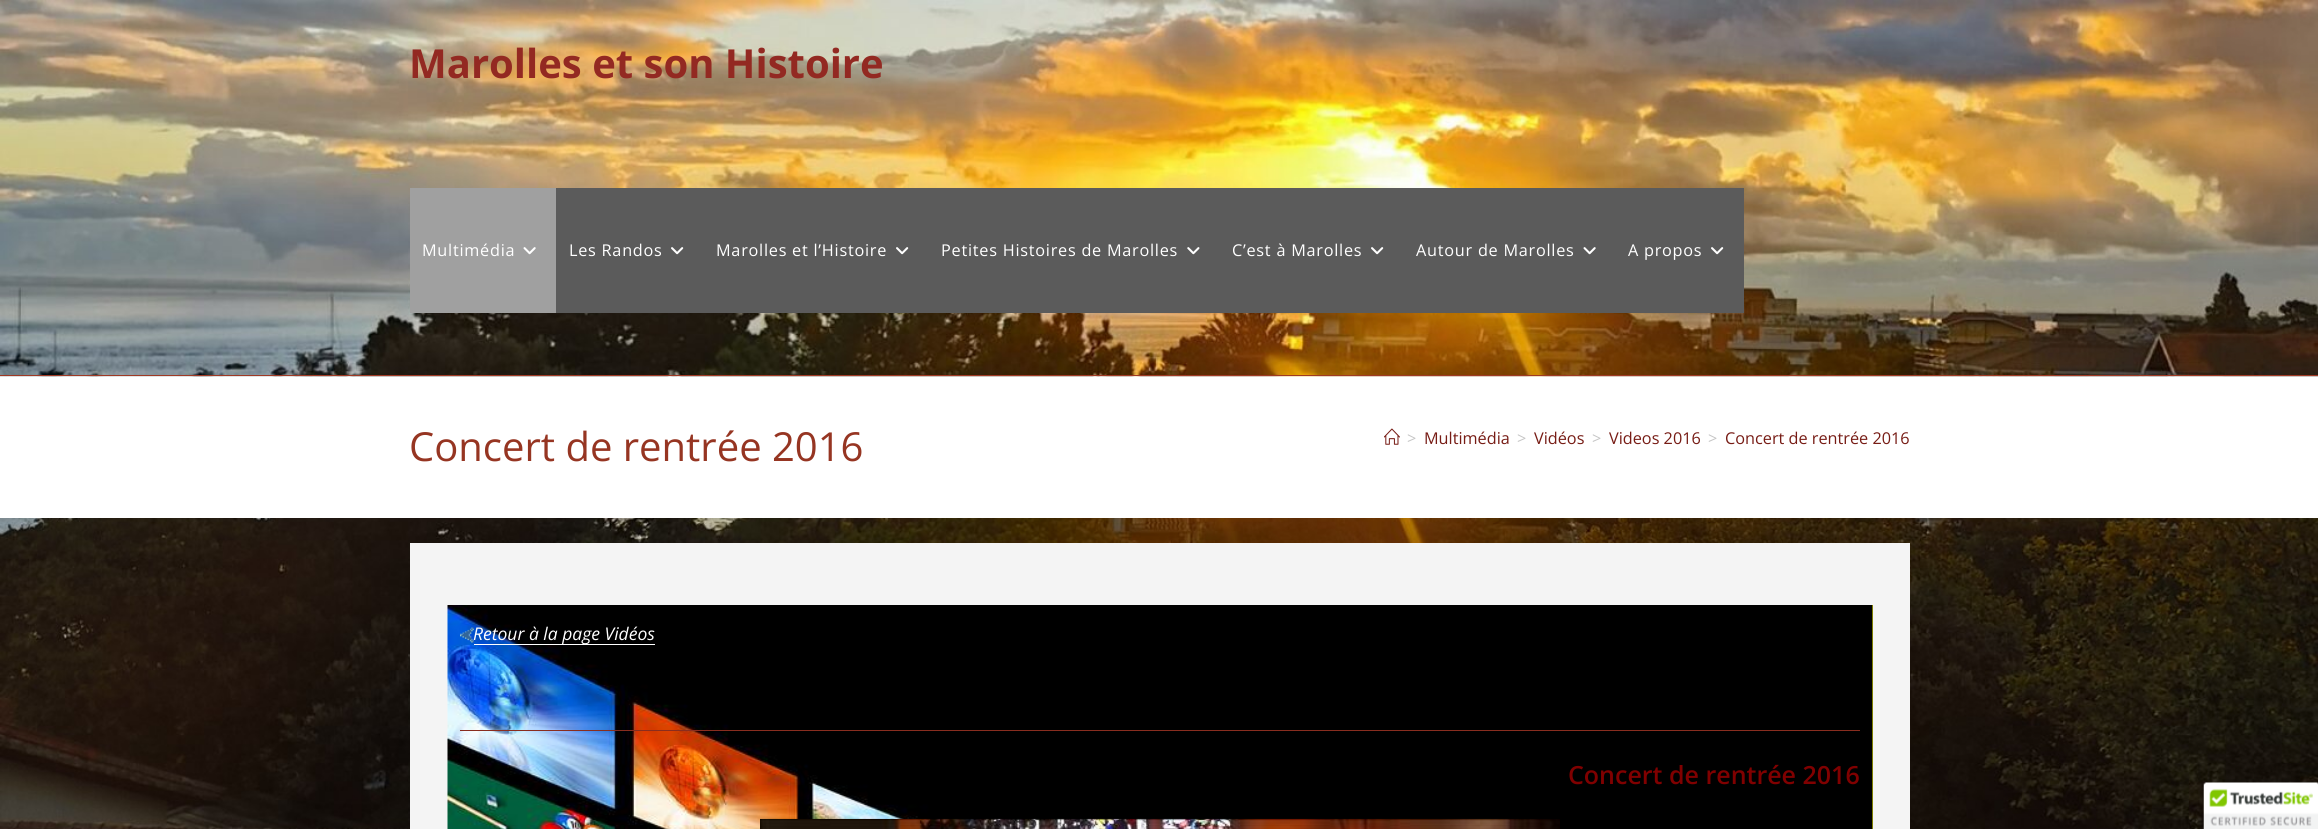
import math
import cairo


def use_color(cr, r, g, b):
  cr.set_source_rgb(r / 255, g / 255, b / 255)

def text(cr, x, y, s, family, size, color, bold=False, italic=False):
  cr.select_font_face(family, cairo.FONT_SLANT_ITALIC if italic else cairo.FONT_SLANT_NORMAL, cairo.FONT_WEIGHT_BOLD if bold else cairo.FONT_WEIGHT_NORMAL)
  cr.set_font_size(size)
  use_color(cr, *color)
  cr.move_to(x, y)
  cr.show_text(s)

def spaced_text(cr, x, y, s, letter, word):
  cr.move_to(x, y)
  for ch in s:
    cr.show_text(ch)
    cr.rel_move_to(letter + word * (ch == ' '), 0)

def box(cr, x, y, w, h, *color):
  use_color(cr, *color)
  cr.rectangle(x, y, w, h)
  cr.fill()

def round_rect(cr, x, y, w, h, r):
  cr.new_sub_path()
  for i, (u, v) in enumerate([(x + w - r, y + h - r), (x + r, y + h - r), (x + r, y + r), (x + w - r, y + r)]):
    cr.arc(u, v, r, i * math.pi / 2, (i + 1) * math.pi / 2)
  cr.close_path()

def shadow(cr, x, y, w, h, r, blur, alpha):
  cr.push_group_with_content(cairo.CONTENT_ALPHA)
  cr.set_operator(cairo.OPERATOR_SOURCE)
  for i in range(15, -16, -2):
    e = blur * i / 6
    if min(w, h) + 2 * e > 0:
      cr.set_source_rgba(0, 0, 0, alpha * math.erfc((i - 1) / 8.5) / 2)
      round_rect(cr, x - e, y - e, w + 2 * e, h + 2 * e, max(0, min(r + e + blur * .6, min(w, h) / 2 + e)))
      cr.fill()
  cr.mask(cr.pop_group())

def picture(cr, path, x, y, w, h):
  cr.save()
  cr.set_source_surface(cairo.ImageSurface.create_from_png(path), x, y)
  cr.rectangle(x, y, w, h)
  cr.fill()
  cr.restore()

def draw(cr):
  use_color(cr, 255, 255, 255)
  cr.paint()
  picture(cr, "img_01.png", 0, 518, 2318, 311)
  picture(cr, "img_02.png", 0, 0, 2318, 377)
  box(cr, 0, 375, 2318, 1, 160, 57, 36)
  box(cr, 410, 188, 146, 125, 160, 160, 160)
  picture(cr, "img_03.png", 523, 247, 13, 8)
  box(cr, 556, 188, 1188, 125, 91, 91, 91)
  picture(cr, "img_04.png", 671, 247, 13, 8)
  picture(cr, "img_04.png", 896, 247, 13, 8)
  picture(cr, "img_05.png", 1187, 247, 13, 8)
  picture(cr, "img_04.png", 1371, 247, 13, 8)
  picture(cr, "img_06.png", 1583, 247, 13, 8)
  picture(cr, "img_04.png", 1711, 247, 13, 8)
  picture(cr, "img_07.png", 1384, 428, 16, 17)
  box(cr, 410, 543, 1500, 286, 244, 244, 244)
  box(cr, 1872, 605, 1, 224, 255, 255, 0)
  picture(cr, "img_08.png", 447, 605, 1426, 224)
  picture(cr, "img_09.png", 460, 627, 14, 16)
  box(cr, 474, 644, 181, 1, 255, 255, 255)
  box(cr, 460, 730, 1400, 1, 137, 45, 31)
  picture(cr, "img_10.png", 760, 818, 800, 11)
  use_color(cr, 0, 0, 0)
  shadow(cr, 2204, 783, 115, 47, 2.5, 3, 0.2)
  picture(cr, "img_11.png", 2203, 782, 115, 47)
  text(cr, 409, 78, "Marolles et son Histoire", "Open Sans", 40, (147, 41, 34), bold=True)
  cr.select_font_face("Open Sans")
  cr.set_font_size(16.25)
  use_color(cr, 255, 255, 255)
  spaced_text(cr, 422, 256, "Multimédia", 0.75, 0)
  spaced_text(cr, 569, 256, "Les Randos", 0.75, 0)
  spaced_text(cr, 716, 256, "Marolles et l’Histoire", 0.75, 0)
  spaced_text(cr, 941, 256, "Petites Histoires de Marolles", 0.75, 0)
  spaced_text(cr, 1232, 256, "C’est à Marolles", 0.75, 0)
  spaced_text(cr, 1416, 256, "Autour de Marolles", 0.75, 0)
  spaced_text(cr, 1628, 256, "A propos", 0.75, 0)
  text(cr, 409, 461, "Concert de rentrée 2016", "Open Sans", 40, (150, 53, 34))
  text(cr, 1407, 444, ">", "Open Sans", 16.25, (198, 198, 198))
  text(cr, 1424, 444, "Multimédia", "Open Sans", 16.25, (119, 28, 21))
  text(cr, 1517, 444, ">", "Open Sans", 16.25, (198, 198, 198))
  text(cr, 1534, 444, "Vidéos", "Open Sans", 16.25, (119, 28, 21))
  text(cr, 1592, 444, ">", "Open Sans", 16.25, (198, 198, 198))
  text(cr, 1609, 444, "Videos 2016", "Open Sans", 16.25, (119, 28, 21))
  text(cr, 1708, 444, ">", "Open Sans", 16.25, (198, 198, 198))
  text(cr, 1725, 444, "Concert de rentrée 2016", "Open Sans", 16.25, (119, 28, 21))
  text(cr, 473, 640, "Retour à la page Vidéos", "Open Sans", 17.5, (255, 255, 255), italic=True)
  text(cr, 1568, 784, "Concert de rentrée 2016", "Open Sans SemiBold", 25, (128, 0, 0))


surface = cairo.ImageSurface(cairo.FORMAT_RGB24, 2318, 829)
cr = cairo.Context(surface)
options = cairo.FontOptions()
options.set_hint_metrics(cairo.HINT_METRICS_OFF)
options.set_hint_style(cairo.HINT_STYLE_NONE)
cr.set_font_options(options)
cr.set_miter_limit(4)
draw(cr)
surface.write_to_png("out.png")
